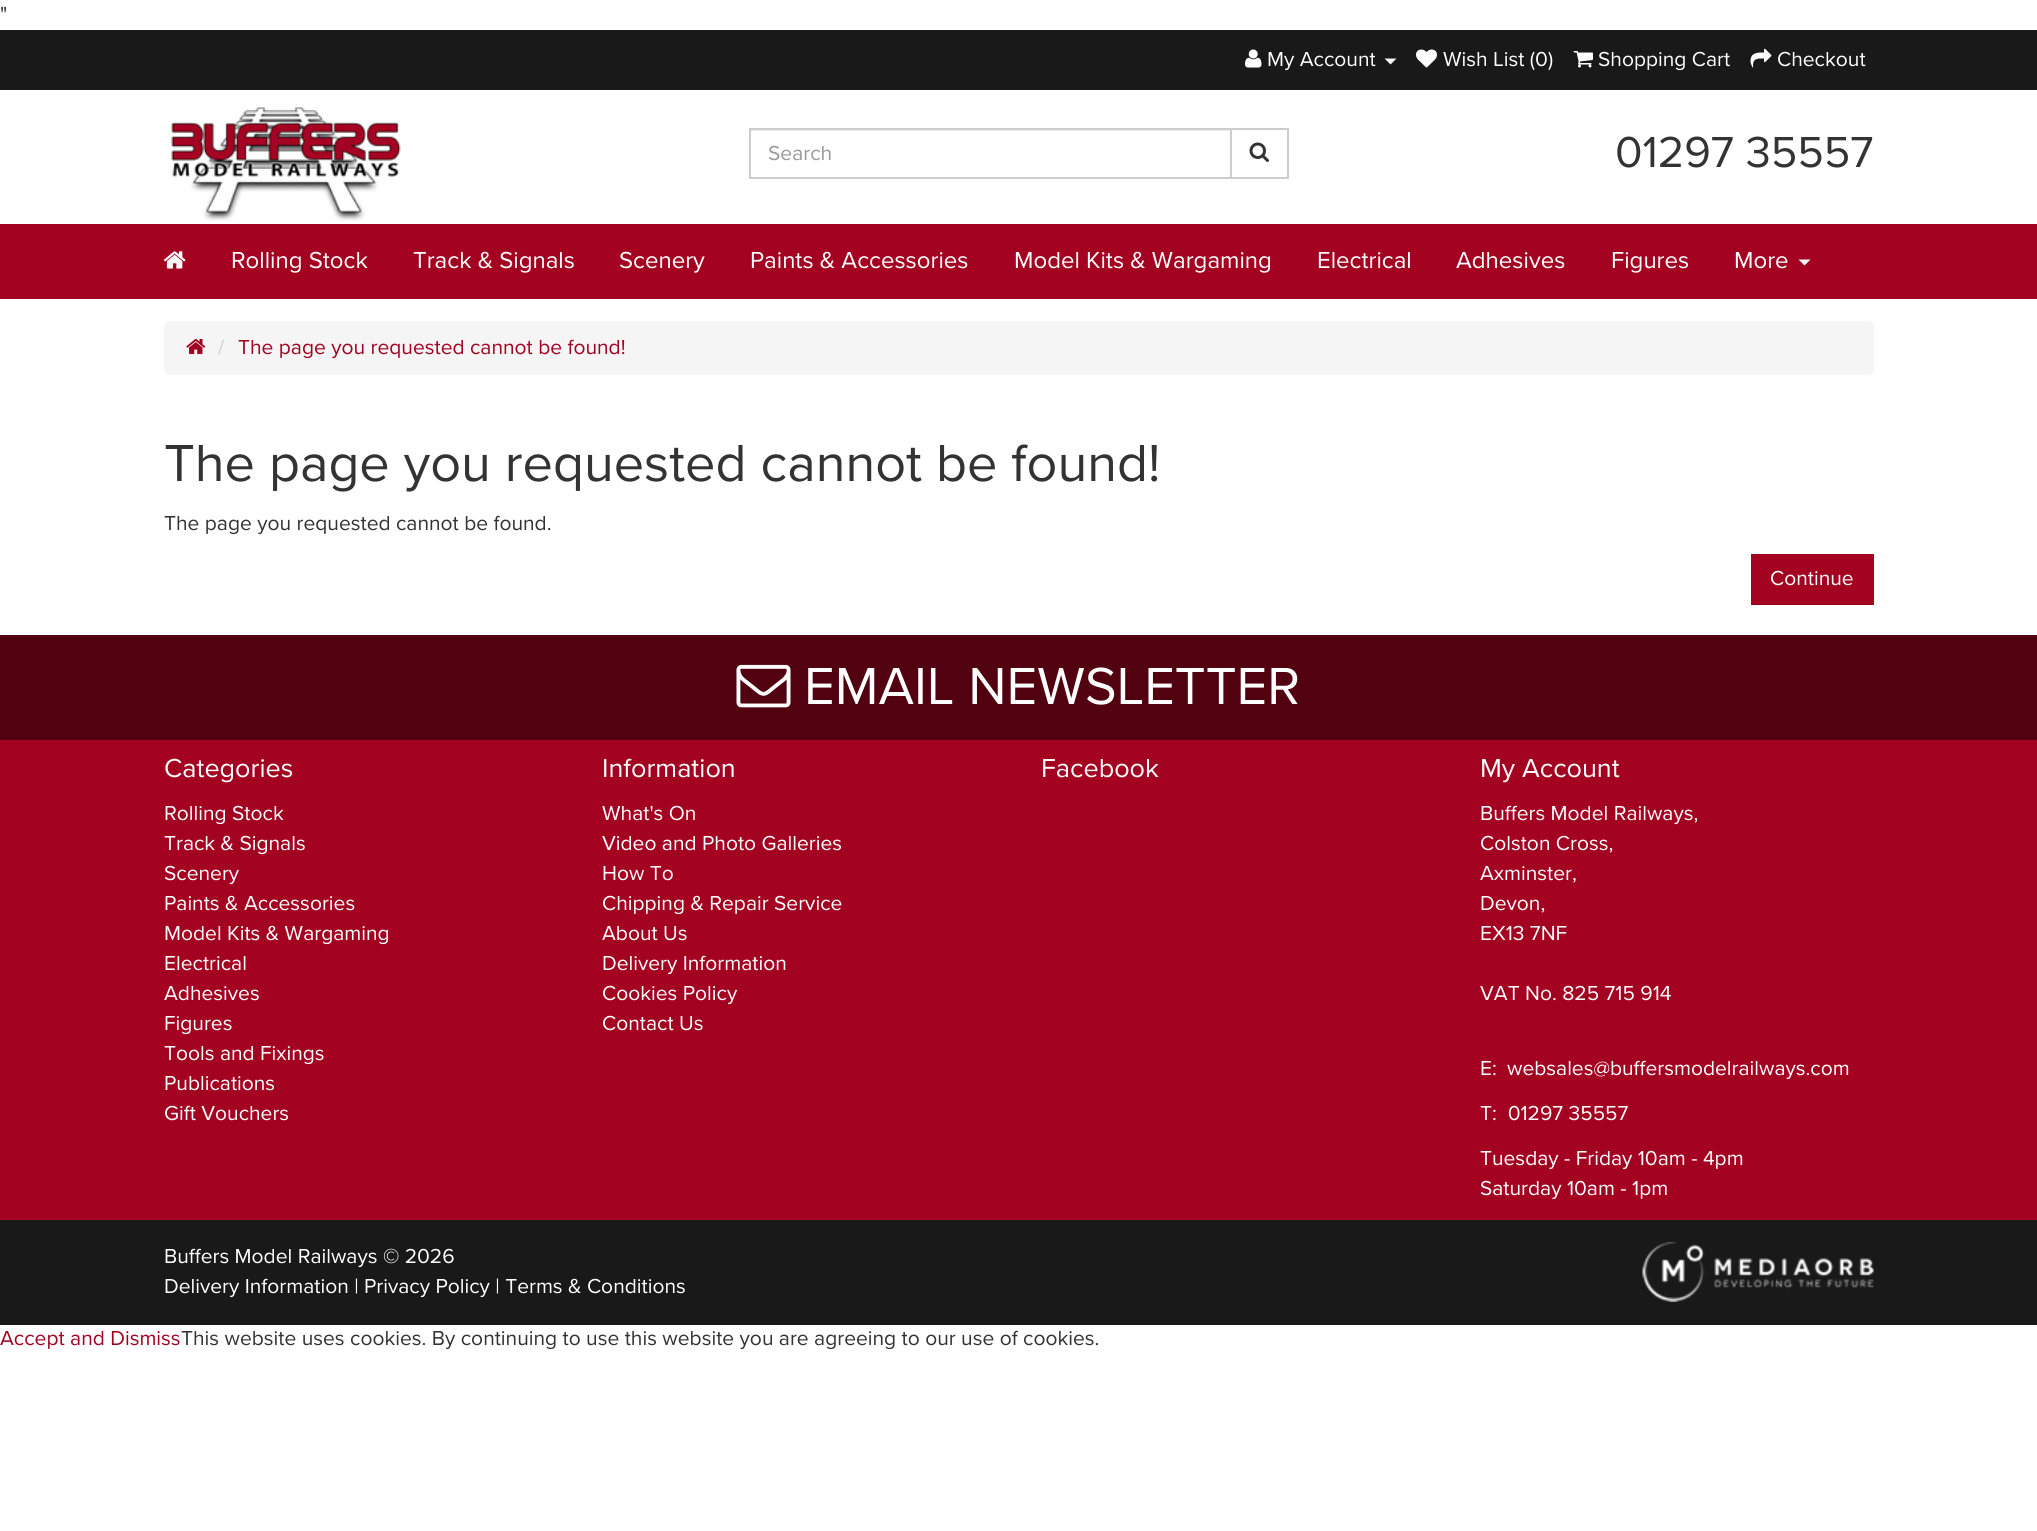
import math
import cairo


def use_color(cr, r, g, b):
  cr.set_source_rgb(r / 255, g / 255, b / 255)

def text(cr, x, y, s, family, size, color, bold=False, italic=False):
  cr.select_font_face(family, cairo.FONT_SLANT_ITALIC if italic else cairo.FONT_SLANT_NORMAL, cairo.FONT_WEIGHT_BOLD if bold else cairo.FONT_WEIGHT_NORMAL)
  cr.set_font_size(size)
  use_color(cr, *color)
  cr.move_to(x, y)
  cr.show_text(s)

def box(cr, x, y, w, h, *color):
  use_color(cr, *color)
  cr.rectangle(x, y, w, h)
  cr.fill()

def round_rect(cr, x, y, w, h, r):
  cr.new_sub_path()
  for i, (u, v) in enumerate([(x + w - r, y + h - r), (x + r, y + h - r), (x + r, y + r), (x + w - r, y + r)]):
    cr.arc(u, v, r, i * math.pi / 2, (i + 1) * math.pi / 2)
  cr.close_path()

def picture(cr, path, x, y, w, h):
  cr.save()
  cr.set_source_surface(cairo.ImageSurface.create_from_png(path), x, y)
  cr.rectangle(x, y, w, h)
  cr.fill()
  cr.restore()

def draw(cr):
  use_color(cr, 255, 255, 255)
  cr.paint()
  box(cr, 0, 30, 2037, 60, 25, 25, 25)
  picture(cr, "img_01.png", 1245, 49, 17, 19)
  use_color(cr, 255, 255, 255)
  cr.new_path()
  cr.move_to(1384.5, 58.5)
  cr.line_to(1396.5, 58.5)
  cr.line_to(1390.5, 64.5)
  cr.close_path()
  cr.fill()
  picture(cr, "img_02.png", 1416, 49, 21, 19)
  picture(cr, "img_03.png", 1573, 51, 20, 17)
  picture(cr, "img_04.png", 1750, 48, 22, 20)
  picture(cr, "img_05.png", 171, 107, 230, 114)
  box(cr, 750, 130, 480, 1, 236, 236, 236)
  cr.rectangle(750, 129, 481, 49)
  use_color(cr, 204, 204, 204)
  cr.stroke()
  cr.rectangle(1231, 129, 57, 49)
  cr.stroke()
  picture(cr, "img_06.png", 1249, 142, 20, 20)
  box(cr, 0, 224, 2037, 75, 163, 2, 33)
  picture(cr, "img_07.png", 163, 251, 23, 18)
  use_color(cr, 255, 255, 255)
  cr.new_path()
  cr.move_to(1798.5, 259.5)
  cr.line_to(1810.5, 259.5)
  cr.line_to(1804.5, 265.5)
  cr.close_path()
  cr.fill()
  use_color(cr, 245, 245, 245)
  round_rect(cr, 164, 321, 1710, 54, 6)
  cr.fill()
  picture(cr, "img_08.png", 186, 339, 20, 15)
  box(cr, 1751, 554, 123, 51, 163, 2, 33)
  box(cr, 0, 635, 2037, 105, 82, 1, 17)
  picture(cr, "img_09.png", 736, 664, 55, 44)
  box(cr, 0, 740, 2037, 480, 163, 2, 33)
  box(cr, 0, 1220, 2037, 105, 25, 25, 25)
  picture(cr, "img_10.png", 1642, 1242, 232, 60)
  text(cr, 0, 21, "\"", "Proxima Nova", 21, (51, 51, 51))
  text(cr, 1267, 66, "My Account", "Proxima Nova", 21, (255, 255, 255))
  text(cr, 1443, 66, "Wish List (0)", "Proxima Nova", 21, (255, 255, 255))
  text(cr, 1598, 66, "Shopping Cart", "Proxima Nova", 21, (255, 255, 255))
  text(cr, 1777, 66, "Checkout", "Proxima Nova", 21, (255, 255, 255))
  text(cr, 768, 160, "Search", "Proxima Nova", 21, (153, 153, 153))
  text(cr, 1615, 167, "01297 35557", "Proxima Nova", 45, (51, 51, 51))
  text(cr, 231, 268, "Rolling Stock", "Proxima Nova", 24, (255, 255, 255))
  text(cr, 413, 268, "Track & Signals", "Proxima Nova", 24, (255, 255, 255))
  text(cr, 619, 268, "Scenery", "Proxima Nova", 24, (255, 255, 255))
  text(cr, 750, 268, "Paints & Accessories", "Proxima Nova", 24, (255, 255, 255))
  text(cr, 1014, 268, "Model Kits & Wargaming", "Proxima Nova", 24, (255, 255, 255))
  text(cr, 1317, 268, "Electrical", "Proxima Nova", 24, (255, 255, 255))
  text(cr, 1456, 268, "Adhesives", "Proxima Nova", 24, (255, 255, 255))
  text(cr, 1611, 268, "Figures", "Proxima Nova", 24, (255, 255, 255))
  text(cr, 1734, 268, "More", "Proxima Nova", 24, (255, 255, 255))
  text(cr, 218, 354, "/", "Proxima Nova", 21, (204, 204, 204))
  text(cr, 238, 354, "The page you requested cannot be found!", "Proxima Nova", 21, (162, 2, 34))
  text(cr, 164, 481, "The page you requested cannot be found!", "Proxima Nova", 54, (51, 51, 51))
  text(cr, 164, 530, "The page you requested cannot be found.", "Proxima Nova", 21, (51, 51, 51))
  text(cr, 1770, 585, "Continue", "Proxima Nova", 21, (255, 255, 255))
  text(cr, 804, 704, "EMAIL NEWSLETTER", "Proxima Nova", 54, (255, 255, 255))
  text(cr, 164, 777, "Categories", "Proxima Nova", 27, (255, 255, 255))
  text(cr, 164, 820, "Rolling Stock", "Proxima Nova", 21, (255, 255, 255))
  text(cr, 164, 850, "Track & Signals", "Proxima Nova", 21, (255, 255, 255))
  text(cr, 164, 880, "Scenery", "Proxima Nova", 21, (255, 255, 255))
  text(cr, 164, 910, "Paints & Accessories", "Proxima Nova", 21, (255, 255, 255))
  text(cr, 164, 940, "Model Kits & Wargaming", "Proxima Nova", 21, (255, 255, 255))
  text(cr, 164, 970, "Electrical", "Proxima Nova", 21, (255, 255, 255))
  text(cr, 164, 1000, "Adhesives", "Proxima Nova", 21, (255, 255, 255))
  text(cr, 164, 1030, "Figures", "Proxima Nova", 21, (255, 255, 255))
  text(cr, 164, 1060, "Tools and Fixings", "Proxima Nova", 21, (255, 255, 255))
  text(cr, 164, 1090, "Publications", "Proxima Nova", 21, (255, 255, 255))
  text(cr, 164, 1120, "Gift Vouchers", "Proxima Nova", 21, (255, 255, 255))
  text(cr, 602, 777, "Information", "Proxima Nova", 27, (255, 255, 255))
  text(cr, 602, 820, "What's On", "Proxima Nova", 21, (255, 255, 255))
  text(cr, 602, 850, "Video and Photo Galleries", "Proxima Nova", 21, (255, 255, 255))
  text(cr, 602, 880, "How To", "Proxima Nova", 21, (255, 255, 255))
  text(cr, 602, 910, "Chipping & Repair Service", "Proxima Nova", 21, (255, 255, 255))
  text(cr, 602, 940, "About Us", "Proxima Nova", 21, (255, 255, 255))
  text(cr, 602, 970, "Delivery Information", "Proxima Nova", 21, (255, 255, 255))
  text(cr, 602, 1000, "Cookies Policy", "Proxima Nova", 21, (255, 255, 255))
  text(cr, 602, 1030, "Contact Us", "Proxima Nova", 21, (255, 255, 255))
  text(cr, 1041, 777, "Facebook", "Proxima Nova", 27, (255, 255, 255))
  text(cr, 1480, 777, "My Account", "Proxima Nova", 27, (255, 255, 255))
  text(cr, 1480, 820, "Buffers Model Railways,", "Proxima Nova", 21, (255, 255, 255))
  text(cr, 1480, 850, "Colston Cross,", "Proxima Nova", 21, (255, 255, 255))
  text(cr, 1480, 880, "Axminster,", "Proxima Nova", 21, (255, 255, 255))
  text(cr, 1480, 910, "Devon,", "Proxima Nova", 21, (255, 255, 255))
  text(cr, 1480, 940, "EX13 7NF", "Proxima Nova", 21, (255, 255, 255))
  text(cr, 1480, 1000, "VAT No. 825 715 914", "Proxima Nova", 21, (255, 255, 255))
  text(cr, 1480, 1075, "E:", "Proxima Nova", 21, (255, 255, 255))
  text(cr, 1507, 1075, "websales@buffersmodelrailways.com", "Proxima Nova", 21, (255, 255, 255))
  text(cr, 1480, 1120, "T:  01297 35557", "Proxima Nova", 21, (255, 255, 255))
  text(cr, 1480, 1165, "Tuesday - Friday 10am - 4pm", "Proxima Nova", 21, (255, 255, 255))
  text(cr, 1480, 1195, "Saturday 10am - 1pm", "Proxima Nova", 21, (255, 255, 255))
  text(cr, 164, 1263, "Buffers Model Railways © 2026", "Proxima Nova", 21, (255, 255, 255))
  text(cr, 164, 1293, "Delivery Information | Privacy Policy | Terms & Conditions", "Proxima Nova", 21, (255, 255, 255))
  text(cr, 0, 1345, "Accept and Dismiss", "Proxima Nova", 21, (162, 2, 34))
  text(cr, 181, 1345, "This website uses cookies. By continuing to use this website you are agreeing to our use of cookies.", "Proxima Nova", 21, (51, 51, 51))


surface = cairo.ImageSurface(cairo.FORMAT_RGB24, 2037, 1531)
cr = cairo.Context(surface)
options = cairo.FontOptions()
options.set_hint_metrics(cairo.HINT_METRICS_OFF)
options.set_hint_style(cairo.HINT_STYLE_NONE)
cr.set_font_options(options)
cr.set_miter_limit(4)
draw(cr)
surface.write_to_png("out.png")
